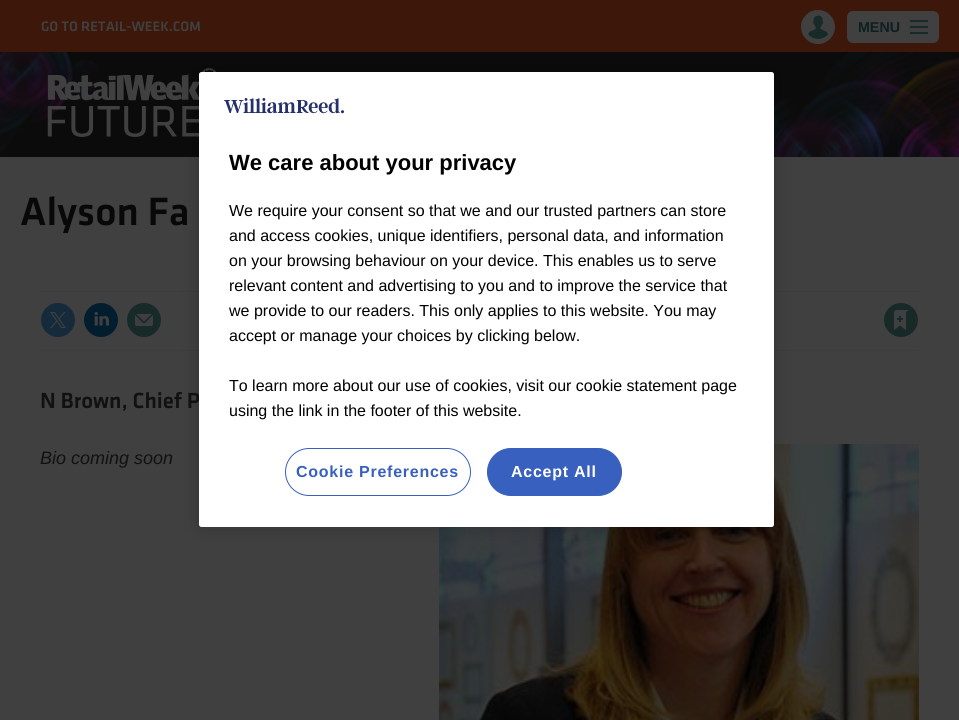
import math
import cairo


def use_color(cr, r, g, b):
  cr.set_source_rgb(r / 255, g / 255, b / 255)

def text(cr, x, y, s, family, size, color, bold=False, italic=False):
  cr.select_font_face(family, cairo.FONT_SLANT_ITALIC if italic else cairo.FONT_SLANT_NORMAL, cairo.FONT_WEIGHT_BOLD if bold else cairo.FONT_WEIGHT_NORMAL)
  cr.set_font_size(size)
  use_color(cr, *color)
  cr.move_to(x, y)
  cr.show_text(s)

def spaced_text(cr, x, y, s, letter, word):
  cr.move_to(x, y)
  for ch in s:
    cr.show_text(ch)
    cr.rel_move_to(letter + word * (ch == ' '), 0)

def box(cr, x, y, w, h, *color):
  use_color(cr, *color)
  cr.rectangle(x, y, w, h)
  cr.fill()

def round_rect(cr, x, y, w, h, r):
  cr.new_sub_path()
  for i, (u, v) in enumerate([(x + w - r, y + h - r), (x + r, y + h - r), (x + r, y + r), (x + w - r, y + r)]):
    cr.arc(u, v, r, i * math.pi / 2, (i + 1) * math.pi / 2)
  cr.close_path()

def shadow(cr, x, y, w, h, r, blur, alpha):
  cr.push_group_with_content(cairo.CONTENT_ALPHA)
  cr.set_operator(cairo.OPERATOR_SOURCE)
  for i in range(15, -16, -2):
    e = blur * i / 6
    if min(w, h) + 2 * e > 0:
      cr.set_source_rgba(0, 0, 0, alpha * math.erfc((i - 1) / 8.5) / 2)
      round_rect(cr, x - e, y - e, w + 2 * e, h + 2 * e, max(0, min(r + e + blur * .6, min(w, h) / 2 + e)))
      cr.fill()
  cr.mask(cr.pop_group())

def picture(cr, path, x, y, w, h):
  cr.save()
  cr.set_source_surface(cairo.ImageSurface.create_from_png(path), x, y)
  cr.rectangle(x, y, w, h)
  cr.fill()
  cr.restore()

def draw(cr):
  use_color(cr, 64, 64, 64)
  cr.paint()
  box(cr, 0, 0, 959, 52, 61, 23, 9)
  picture(cr, "img_01.png", 801, 10, 34, 34)
  use_color(cr, 64, 64, 64)
  round_rect(cr, 847, 11, 92, 32, 6)
  cr.fill()
  picture(cr, "img_02.png", 910, 20, 18, 14)
  picture(cr, "img_03.png", 0, 52, 959, 105)
  picture(cr, "img_04.png", 47, 68, 170, 69)
  box(cr, 40, 291, 879, 1, 60, 61, 61)
  box(cr, 40, 350, 879, 1, 60, 61, 61)
  picture(cr, "img_05.png", 41, 303, 34, 34)
  picture(cr, "img_06.png", 84, 303, 34, 34)
  picture(cr, "img_07.png", 127, 303, 34, 34)
  picture(cr, "img_08.png", 884, 303, 34, 34)
  picture(cr, "img_09.png", 439, 444, 480, 276)
  use_color(cr, 0, 0, 0)
  shadow(cr, 199, 72, 575, 455, 2.5, 9, 0.2)
  text(cr, 41, 31, "GO TO RETAIL-WEEK.COM", "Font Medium", 14.25, (64, 64, 64))
  text(cr, 858, 32, "MENU", "Liberation Sans", 14.25, (14, 31, 32), bold=True)
  text(cr, 20, 225, "Alyson Fa", "Font Medium", 41, (8, 8, 8))
  text(cr, 40, 408, "N Brown, Chief P", "Font Medium", 22.75, (17, 17, 17))
  text(cr, 40, 464, "Bio coming soon", "Liberation Sans", 18, (17, 17, 17), italic=True)
  use_color(cr, 255, 255, 255)
  round_rect(cr, 199, 72, 575, 455, 2.5)
  cr.fill()
  picture(cr, "img_10.png", 224, 98, 120, 16)
  text(cr, 229, 170, "We care about your privacy", "Liberation Sans", 22, (0, 0, 0), bold=True)
  text(cr, 229, 216, "We require your consent so that we and our trusted partners can store", "Liberation Sans", 16, (0, 0, 0))
  text(cr, 229, 241, "and access cookies, unique identifiers, personal data, and information", "Liberation Sans", 16, (0, 0, 0))
  text(cr, 229, 266, "on your browsing behaviour on your device. This enables us to serve", "Liberation Sans", 16, (0, 0, 0))
  text(cr, 229, 291, "relevant content and advertising to you and to improve the service that", "Liberation Sans", 16, (0, 0, 0))
  text(cr, 229, 316, "we provide to our readers. This only applies to this website. You may", "Liberation Sans", 16, (0, 0, 0))
  text(cr, 229, 341, "accept or manage your choices by clicking below.", "Liberation Sans", 16, (0, 0, 0))
  text(cr, 229, 391, "To learn more about our use of cookies, visit our cookie statement page", "Liberation Sans", 16, (0, 0, 0))
  text(cr, 229, 416, "using the link in the footer of this website.", "Liberation Sans", 16, (0, 0, 0))
  round_rect(cr, 285.5, 448.5, 185, 47, 23.5)
  use_color(cr, 56, 96, 190)
  cr.set_line_width(1)
  cr.stroke()
  cr.select_font_face("Liberation Sans", cairo.FONT_SLANT_NORMAL, cairo.FONT_WEIGHT_BOLD)
  spaced_text(cr, 296, 477, "Cookie Preferences", 0.75, 0)
  round_rect(cr, 487.5, 448.5, 134, 47, 23.5)
  cr.fill_preserve()
  cr.stroke()
  use_color(cr, 255, 255, 255)
  spaced_text(cr, 511, 477, "Accept All", 0.75, 0)


surface = cairo.ImageSurface(cairo.FORMAT_RGB24, 959, 720)
cr = cairo.Context(surface)
options = cairo.FontOptions()
options.set_hint_metrics(cairo.HINT_METRICS_OFF)
options.set_hint_style(cairo.HINT_STYLE_NONE)
cr.set_font_options(options)
cr.set_miter_limit(4)
draw(cr)
surface.write_to_png("out.png")
